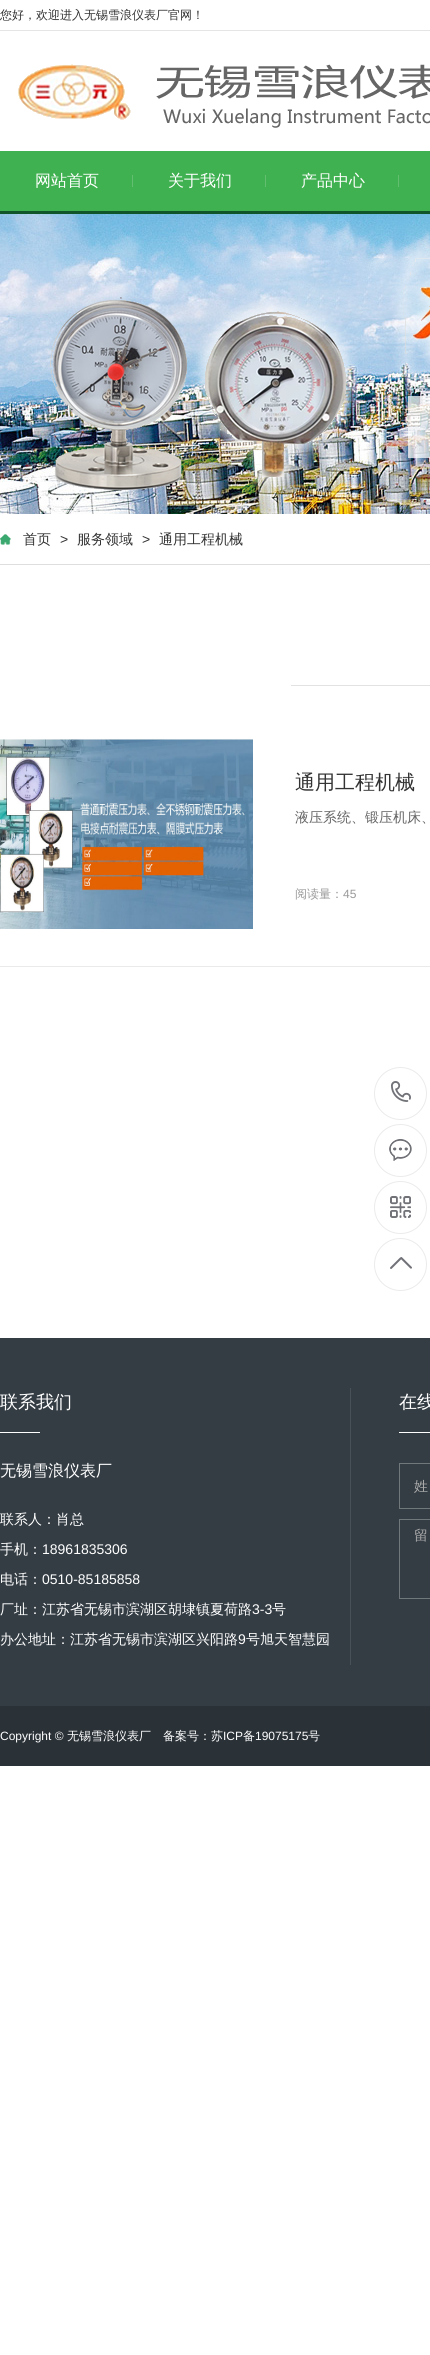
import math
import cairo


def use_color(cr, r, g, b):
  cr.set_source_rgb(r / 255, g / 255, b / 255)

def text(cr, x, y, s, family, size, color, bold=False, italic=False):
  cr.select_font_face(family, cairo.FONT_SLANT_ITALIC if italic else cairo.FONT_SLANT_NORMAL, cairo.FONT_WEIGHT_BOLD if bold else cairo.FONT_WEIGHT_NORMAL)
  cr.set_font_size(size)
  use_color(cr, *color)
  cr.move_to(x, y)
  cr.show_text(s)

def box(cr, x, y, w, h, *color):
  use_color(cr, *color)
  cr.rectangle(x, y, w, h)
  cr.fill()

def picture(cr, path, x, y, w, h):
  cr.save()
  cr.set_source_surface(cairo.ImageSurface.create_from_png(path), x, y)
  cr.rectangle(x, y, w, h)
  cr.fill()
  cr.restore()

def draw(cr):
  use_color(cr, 255, 255, 255)
  cr.paint()
  box(cr, 0, 30, 430, 1, 229, 229, 229)
  picture(cr, "img_01.png", 18, 64, 412, 64)
  box(cr, 0, 151, 430, 60, 63, 177, 80)
  box(cr, 0, 211, 430, 3, 16, 85, 41)
  box(cr, 132, 175, 1, 12, 99, 190, 112)
  box(cr, 265, 175, 1, 12, 99, 190, 112)
  box(cr, 398, 175, 1, 12, 99, 190, 112)
  picture(cr, "img_02.png", 0, 214, 430, 300)
  box(cr, 0, 564, 430, 1, 222, 222, 222)
  picture(cr, "img_03.png", 0, 534, 11, 11)
  box(cr, 291, 685, 139, 1, 226, 226, 226)
  box(cr, 0, 966, 430, 1, 234, 234, 234)
  picture(cr, "img_04.png", 0, 739, 253, 190)
  cr.arc(400.5, 1093.5, 26, 0, 2 * math.pi)
  use_color(cr, 235, 235, 235)
  cr.set_line_width(1)
  cr.stroke()
  picture(cr, "img_05.png", 391, 1081, 20, 21)
  cr.arc(400.5, 1150.5, 26, 0, 2 * math.pi)
  cr.stroke()
  picture(cr, "img_06.png", 389, 1139, 23, 22)
  cr.arc(400.5, 1207.5, 26, 0, 2 * math.pi)
  cr.stroke()
  picture(cr, "img_07.png", 390, 1196, 21, 22)
  cr.arc(400.5, 1264.5, 26, 0, 2 * math.pi)
  cr.stroke()
  picture(cr, "img_08.png", 390, 1257, 22, 12)
  box(cr, 0, 1338, 430, 368, 52, 61, 68)
  box(cr, 350, 1388, 1, 277, 73, 81, 87)
  box(cr, 0, 1432, 40, 1, 255, 255, 255)
  box(cr, 399, 1432, 31, 1, 255, 255, 255)
  cr.rectangle(399.5, 1463.5, 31, 45)
  use_color(cr, 113, 120, 124)
  cr.stroke()
  cr.rectangle(399.5, 1519.5, 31, 79)
  cr.stroke()
  box(cr, 0, 1706, 430, 60, 42, 49, 55)
  text(cr, 0, 19, "您好，欢迎进入无锡雪浪仪表厂官网！", "WenQuanYi Zen Hei Medium", 12, (51, 51, 51))
  text(cr, 35, 186, "网站首页", "WenQuanYi Zen Hei Medium", 16, (255, 255, 255))
  text(cr, 168, 186, "关于我们", "WenQuanYi Zen Hei Medium", 16, (255, 255, 255))
  text(cr, 301, 186, "产品中心", "WenQuanYi Zen Hei Medium", 16, (255, 255, 255))
  text(cr, 23, 544, "首页", "WenQuanYi Zen Hei Medium", 14, (51, 51, 51))
  text(cr, 60, 544, ">", "Liberation Sans", 14, (51, 51, 51))
  text(cr, 77, 544, "服务领域", "WenQuanYi Zen Hei Medium", 14, (51, 51, 51))
  text(cr, 142, 544, ">", "Liberation Sans", 14, (51, 51, 51))
  text(cr, 159, 544, "通用工程机械", "WenQuanYi Zen Hei Medium", 14, (51, 51, 51))
  text(cr, 295, 789, "通用工程机械", "WenQuanYi Zen Hei Medium", 20, (51, 51, 51))
  text(cr, 295, 822, "液压系统、锻压机床、", "WenQuanYi Zen Hei Medium", 14, (102, 102, 102))
  text(cr, 295, 898, "阅读量：", "WenQuanYi Zen Hei Medium", 12, (153, 153, 153))
  text(cr, 343, 898, "45", "Liberation Sans", 12, (153, 153, 153))
  text(cr, 0, 1408, "联系我们", "WenQuanYi Zen Hei Medium", 18, (255, 255, 255))
  text(cr, 0, 1476, "无锡雪浪仪表厂", "WenQuanYi Zen Hei Medium", 16, (255, 255, 255))
  text(cr, 0, 1524, "联系人：肖总", "WenQuanYi Zen Hei Medium", 14, (255, 255, 255))
  text(cr, 0, 1554, "手机：", "WenQuanYi Zen Hei Medium", 14, (255, 255, 255))
  text(cr, 42, 1554, "18961835306", "Liberation Sans", 14, (255, 255, 255))
  text(cr, 0, 1584, "电话：", "WenQuanYi Zen Hei Medium", 14, (255, 255, 255))
  text(cr, 42, 1584, "0510-85185858", "Liberation Sans", 14, (255, 255, 255))
  text(cr, 0, 1614, "厂址：江苏省无锡市滨湖区胡埭镇夏荷路", "WenQuanYi Zen Hei Medium", 14, (255, 255, 255))
  text(cr, 252, 1614, "3-3", "Liberation Sans", 14, (255, 255, 255))
  text(cr, 272, 1614, "号", "WenQuanYi Zen Hei Medium", 14, (255, 255, 255))
  text(cr, 0, 1644, "办公地址：江苏省无锡市滨湖区兴阳路", "WenQuanYi Zen Hei Medium", 14, (255, 255, 255))
  text(cr, 238, 1644, "9", "Liberation Sans", 14, (255, 255, 255))
  text(cr, 246, 1644, "号旭天智慧园", "WenQuanYi Zen Hei Medium", 14, (255, 255, 255))
  text(cr, 399, 1408, "在线", "WenQuanYi Zen Hei Medium", 18, (255, 255, 255))
  text(cr, 414, 1491, "姓", "WenQuanYi Zen Hei Medium", 14, (170, 170, 170))
  text(cr, 414, 1540, "留", "WenQuanYi Zen Hei Medium", 14, (170, 170, 170))
  text(cr, 0, 1740, "Copyright ©", "Liberation Sans", 12, (255, 255, 255))
  text(cr, 67, 1740, "无锡雪浪仪表厂　备案号：苏", "WenQuanYi Zen Hei Medium", 12, (255, 255, 255))
  text(cr, 223, 1740, "ICP", "Liberation Sans", 12, (255, 255, 255))
  text(cr, 243, 1740, "备", "WenQuanYi Zen Hei Medium", 12, (255, 255, 255))
  text(cr, 255, 1740, "19075175", "Liberation Sans", 12, (255, 255, 255))
  text(cr, 308, 1740, "号", "WenQuanYi Zen Hei Medium", 12, (255, 255, 255))


surface = cairo.ImageSurface(cairo.FORMAT_RGB24, 430, 2355)
cr = cairo.Context(surface)
options = cairo.FontOptions()
options.set_hint_metrics(cairo.HINT_METRICS_OFF)
options.set_hint_style(cairo.HINT_STYLE_NONE)
cr.set_font_options(options)
cr.set_miter_limit(4)
draw(cr)
surface.write_to_png("out.png")
